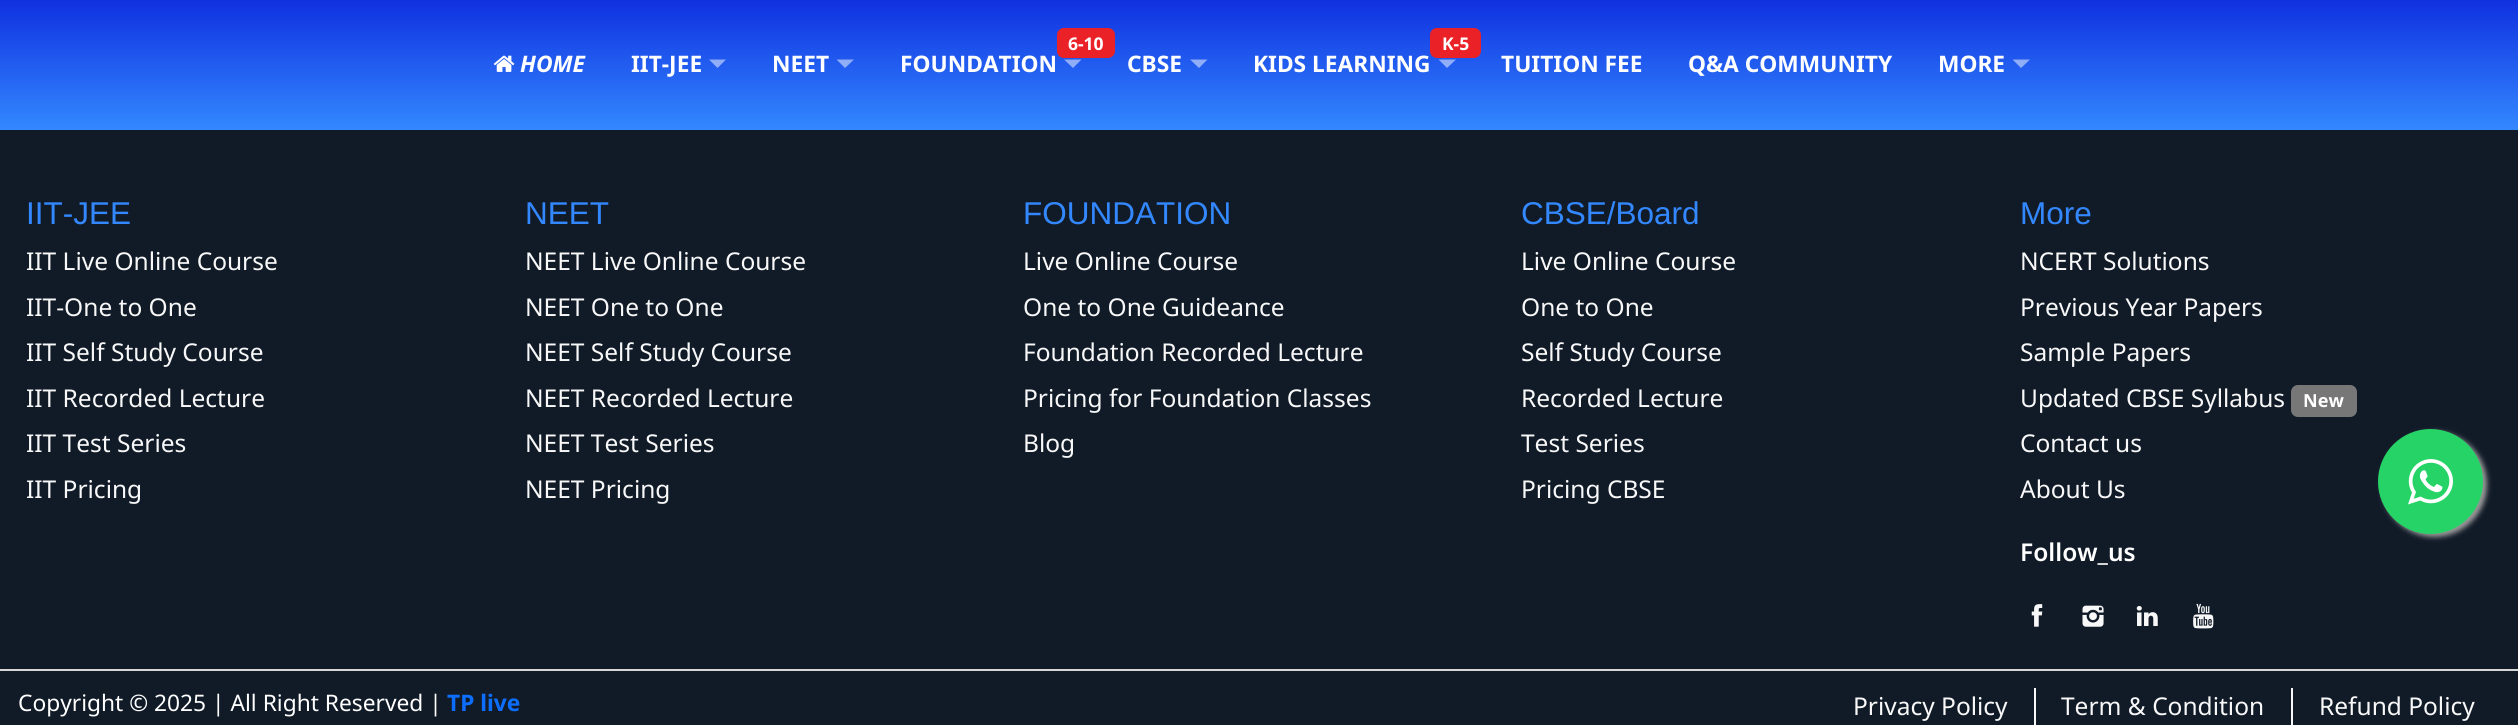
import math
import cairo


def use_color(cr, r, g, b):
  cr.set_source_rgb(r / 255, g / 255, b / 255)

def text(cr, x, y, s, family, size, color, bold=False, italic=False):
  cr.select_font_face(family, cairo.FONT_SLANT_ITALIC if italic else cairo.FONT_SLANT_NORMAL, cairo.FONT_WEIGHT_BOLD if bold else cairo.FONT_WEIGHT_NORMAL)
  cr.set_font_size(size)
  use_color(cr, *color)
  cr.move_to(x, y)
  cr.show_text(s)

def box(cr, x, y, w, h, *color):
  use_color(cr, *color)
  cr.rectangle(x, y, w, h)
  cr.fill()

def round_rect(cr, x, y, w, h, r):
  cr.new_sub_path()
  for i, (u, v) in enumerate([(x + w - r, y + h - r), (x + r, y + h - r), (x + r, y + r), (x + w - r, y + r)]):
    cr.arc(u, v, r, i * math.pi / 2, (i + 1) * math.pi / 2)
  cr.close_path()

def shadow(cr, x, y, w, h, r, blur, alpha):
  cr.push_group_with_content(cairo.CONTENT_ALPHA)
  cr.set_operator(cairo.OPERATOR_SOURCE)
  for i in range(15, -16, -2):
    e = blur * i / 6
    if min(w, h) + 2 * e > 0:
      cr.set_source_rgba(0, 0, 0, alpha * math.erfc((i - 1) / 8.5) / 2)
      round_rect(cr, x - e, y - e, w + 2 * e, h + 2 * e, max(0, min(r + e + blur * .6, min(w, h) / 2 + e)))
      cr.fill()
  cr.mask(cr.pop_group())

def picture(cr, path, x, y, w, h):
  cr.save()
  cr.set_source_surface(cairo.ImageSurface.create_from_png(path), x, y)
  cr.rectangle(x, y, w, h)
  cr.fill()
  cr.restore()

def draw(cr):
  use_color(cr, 17, 27, 40)
  cr.paint()
  gradient = cairo.LinearGradient(1259, 0, 1259, 130)
  gradient.add_color_stop_rgba(0, 0.063, 0.192, 0.878, 1)
  gradient.add_color_stop_rgba(1, 0.2, 0.533, 1, 1)
  cr.set_source(gradient)
  cr.rectangle(0, 0, 2518, 130)
  cr.fill()
  picture(cr, "img_01.png", 493, 55, 22, 17)
  cr.set_source_rgba(1, 1, 1, 0.5)
  cr.new_path()
  cr.move_to(709, 59.5)
  cr.line_to(726, 59.5)
  cr.line_to(717.5, 68)
  cr.close_path()
  cr.fill()
  cr.new_path()
  cr.move_to(836.5, 59.5)
  cr.line_to(854, 59.5)
  cr.line_to(845, 68)
  cr.close_path()
  cr.fill()
  use_color(cr, 234, 34, 39)
  round_rect(cr, 1057, 28, 58, 30, 7)
  cr.fill()
  cr.set_source_rgba(1, 1, 1, 0.5)
  cr.new_path()
  cr.move_to(1064, 59.5)
  cr.line_to(1081.5, 59.5)
  cr.line_to(1073, 68)
  cr.close_path()
  cr.fill()
  cr.new_path()
  cr.move_to(1190, 59.5)
  cr.line_to(1207.5, 59.5)
  cr.line_to(1199, 68)
  cr.close_path()
  cr.fill()
  use_color(cr, 234, 34, 39)
  round_rect(cr, 1430, 28, 51, 30, 7)
  cr.fill()
  cr.set_source_rgba(1, 1, 1, 0.5)
  cr.new_path()
  cr.move_to(1438.5, 59.5)
  cr.line_to(1456, 59.5)
  cr.line_to(1447, 68)
  cr.close_path()
  cr.fill()
  cr.new_path()
  cr.move_to(2012.5, 59.5)
  cr.line_to(2030, 59.5)
  cr.line_to(2021, 68)
  cr.close_path()
  cr.fill()
  use_color(cr, 119, 119, 119)
  round_rect(cr, 2291, 385, 66, 32, 7)
  cr.fill()
  picture(cr, "img_02.png", 2031, 604, 12, 23)
  picture(cr, "img_03.png", 2082, 605, 22, 22)
  picture(cr, "img_04.png", 2136, 606, 22, 20)
  picture(cr, "img_05.png", 2193, 603, 21, 26)
  use_color(cr, 153, 153, 153)
  shadow(cr, 2382, 432, 105, 105, 52.5, 2.5, 1)
  use_color(cr, 37, 211, 102)
  cr.arc(2430.5, 481.5, 52.5, 0, 2 * math.pi)
  cr.fill()
  picture(cr, "img_06.png", 2408, 459, 45, 46)
  box(cr, 0, 669, 2518, 2, 214, 214, 214)
  box(cr, 2034, 688, 2, 37, 248, 248, 248)
  box(cr, 2291, 688, 2, 37, 248, 248, 248)
  text(cr, 520, 72, "HOME", "Noto Sans", 22.75, (255, 255, 255), bold=True, italic=True)
  text(cr, 631, 72, "IIT-JEE", "Noto Sans", 22.75, (255, 255, 255), bold=True)
  text(cr, 772, 72, "NEET", "Noto Sans", 22.75, (255, 255, 255), bold=True)
  text(cr, 1068, 50, "6-10", "Noto Sans", 17.5, (255, 255, 255), bold=True)
  text(cr, 900, 72, "FOUNDATION", "Noto Sans", 22.75, (255, 255, 255), bold=True)
  text(cr, 1127, 72, "CBSE", "Noto Sans", 22.75, (255, 255, 255), bold=True)
  text(cr, 1442, 50, "K-5", "Noto Sans", 17.5, (255, 255, 255), bold=True)
  text(cr, 1253, 72, "KIDS LEARNING", "Noto Sans", 22.75, (255, 255, 255), bold=True)
  text(cr, 1501, 72, "TUITION FEE", "Noto Sans", 22.75, (255, 255, 255), bold=True)
  text(cr, 1688, 72, "Q&A COMMUNITY", "Noto Sans", 22.75, (255, 255, 255), bold=True)
  text(cr, 1938, 72, "MORE", "Noto Sans", 22.75, (255, 255, 255), bold=True)
  text(cr, 26, 224, "IIT-JEE", "Liberation Sans", 31.5, (51, 136, 255))
  text(cr, 26, 270, "IIT Live Online Course", "Noto Sans", 24.5, (248, 248, 248))
  text(cr, 26, 316, "IIT-One to One", "Noto Sans", 24.5, (248, 248, 248))
  text(cr, 26, 361, "IIT Self Study Course", "Noto Sans", 24.5, (248, 248, 248))
  text(cr, 26, 407, "IIT Recorded Lecture", "Noto Sans", 24.5, (248, 248, 248))
  text(cr, 26, 452, "IIT Test Series", "Noto Sans", 24.5, (248, 248, 248))
  text(cr, 26, 498, "IIT Pricing", "Noto Sans", 24.5, (248, 248, 248))
  text(cr, 525, 224, "NEET", "Liberation Sans", 31.5, (51, 136, 255))
  text(cr, 525, 270, "NEET Live Online Course", "Noto Sans", 24.5, (248, 248, 248))
  text(cr, 525, 316, "NEET One to One", "Noto Sans", 24.5, (248, 248, 248))
  text(cr, 525, 361, "NEET Self Study Course", "Noto Sans", 24.5, (248, 248, 248))
  text(cr, 525, 407, "NEET Recorded Lecture", "Noto Sans", 24.5, (248, 248, 248))
  text(cr, 525, 452, "NEET Test Series", "Noto Sans", 24.5, (248, 248, 248))
  text(cr, 525, 498, "NEET Pricing", "Noto Sans", 24.5, (248, 248, 248))
  text(cr, 1023, 224, "FOUNDATION", "Liberation Sans", 31.5, (51, 136, 255))
  text(cr, 1023, 270, "Live Online Course", "Noto Sans", 24.5, (248, 248, 248))
  text(cr, 1023, 316, "One to One Guideance", "Noto Sans", 24.5, (248, 248, 248))
  text(cr, 1023, 361, "Foundation Recorded Lecture", "Noto Sans", 24.5, (248, 248, 248))
  text(cr, 1023, 407, "Pricing for Foundation Classes", "Noto Sans", 24.5, (248, 248, 248))
  text(cr, 1023, 452, "Blog", "Noto Sans", 24.5, (248, 248, 248))
  text(cr, 1521, 224, "CBSE/Board", "Liberation Sans", 31.5, (51, 136, 255))
  text(cr, 1521, 270, "Live Online Course", "Noto Sans", 24.5, (248, 248, 248))
  text(cr, 1521, 316, "One to One", "Noto Sans", 24.5, (248, 248, 248))
  text(cr, 1521, 361, "Self Study Course", "Noto Sans", 24.5, (248, 248, 248))
  text(cr, 1521, 407, "Recorded Lecture", "Noto Sans", 24.5, (248, 248, 248))
  text(cr, 1521, 452, "Test Series", "Noto Sans", 24.5, (248, 248, 248))
  text(cr, 1521, 498, "Pricing CBSE", "Noto Sans", 24.5, (248, 248, 248))
  text(cr, 2020, 224, "More", "Liberation Sans", 31.5, (51, 136, 255))
  text(cr, 2020, 270, "NCERT Solutions", "Noto Sans", 24.5, (248, 248, 248))
  text(cr, 2020, 316, "Previous Year Papers", "Noto Sans", 24.5, (248, 248, 248))
  text(cr, 2020, 361, "Sample Papers", "Noto Sans", 24.5, (248, 248, 248))
  text(cr, 2020, 407, "Updated CBSE Syllabus", "Noto Sans", 24.5, (248, 248, 248))
  text(cr, 2303, 407, "New", "Noto Sans", 18, (255, 255, 255), bold=True)
  text(cr, 2020, 452, "Contact us", "Noto Sans", 24.5, (248, 248, 248))
  text(cr, 2020, 498, "About Us", "Noto Sans", 24.5, (248, 248, 248))
  text(cr, 2020, 561, "Follow_us", "Noto Sans SemiBold", 24.5, (255, 255, 255))
  text(cr, 18, 711, "Copyright © 2025 | All Right Reserved |", "Noto Sans", 22.75, (255, 255, 255))
  text(cr, 447, 711, "TP live", "Noto Sans", 22.75, (13, 110, 253), bold=True)
  text(cr, 1853, 715, "Privacy Policy", "Noto Sans", 24.5, (248, 248, 248))
  text(cr, 2061, 715, "Term & Condition", "Noto Sans", 24.5, (248, 248, 248))
  text(cr, 2319, 715, "Refund Policy", "Noto Sans", 24.5, (248, 248, 248))


surface = cairo.ImageSurface(cairo.FORMAT_RGB24, 2518, 725)
cr = cairo.Context(surface)
options = cairo.FontOptions()
options.set_hint_metrics(cairo.HINT_METRICS_OFF)
options.set_hint_style(cairo.HINT_STYLE_NONE)
cr.set_font_options(options)
cr.set_miter_limit(4)
draw(cr)
surface.write_to_png("out.png")
